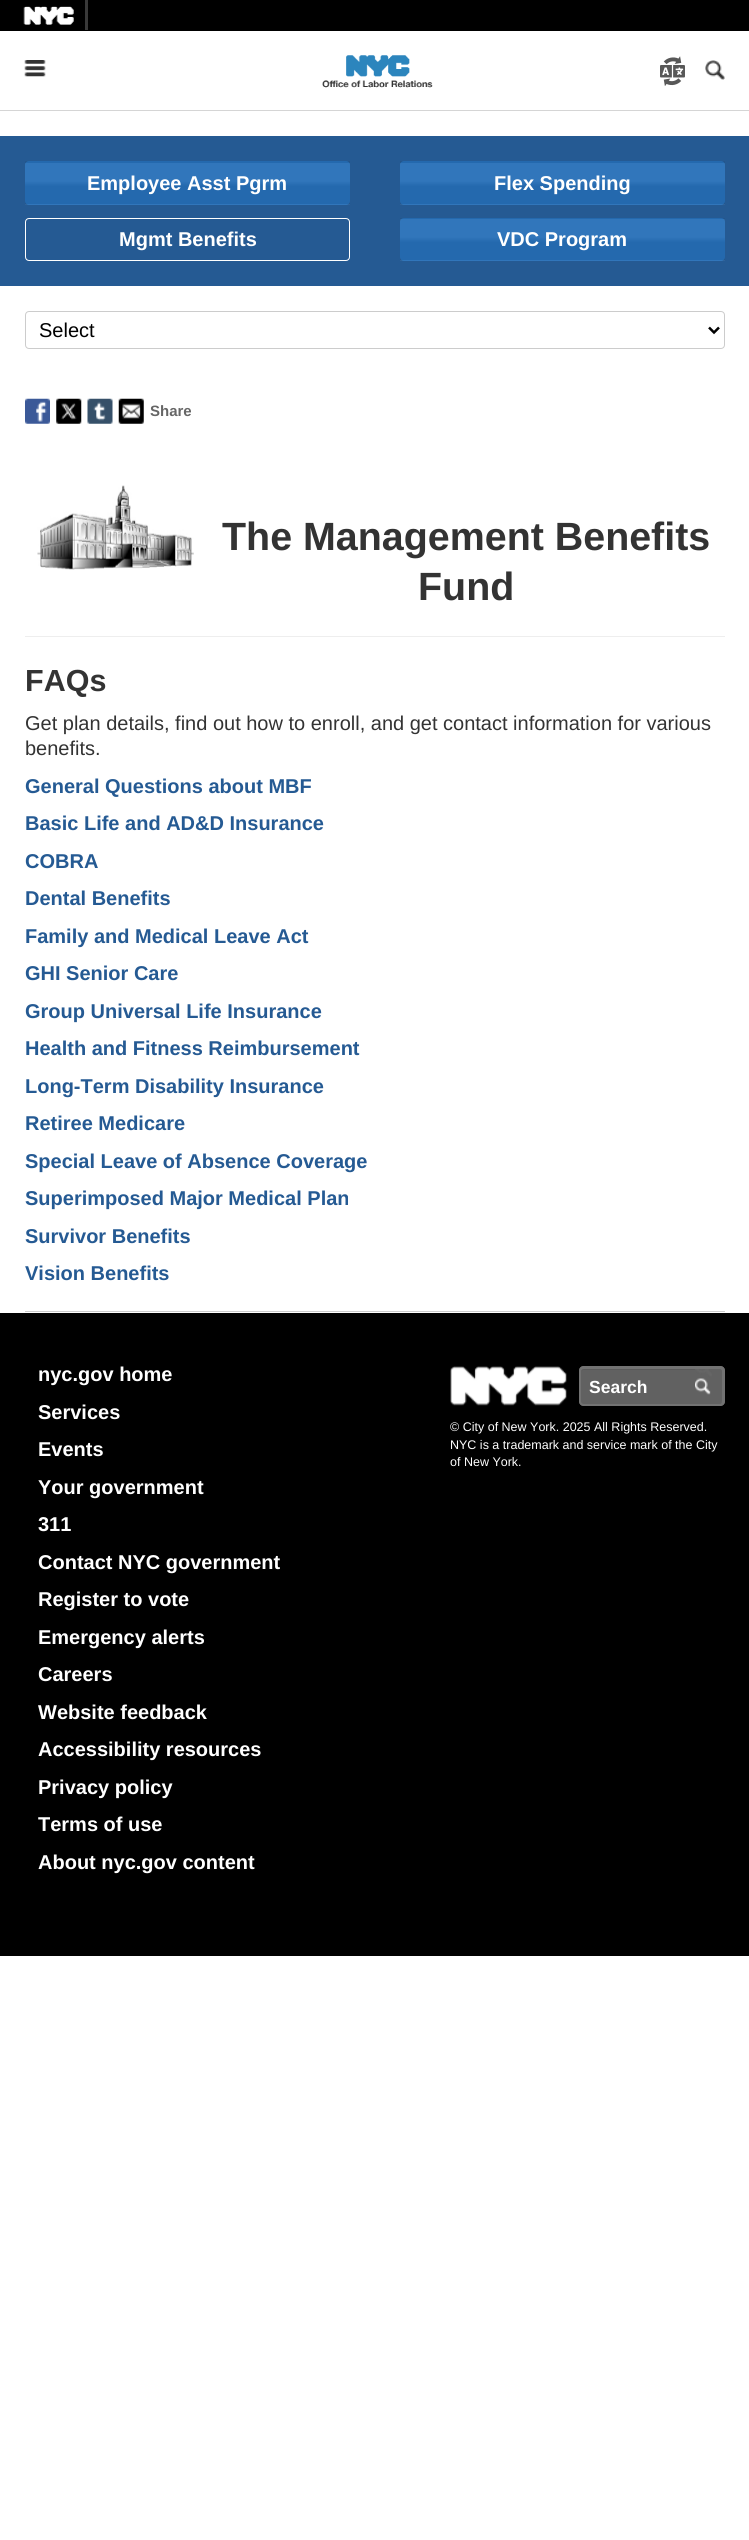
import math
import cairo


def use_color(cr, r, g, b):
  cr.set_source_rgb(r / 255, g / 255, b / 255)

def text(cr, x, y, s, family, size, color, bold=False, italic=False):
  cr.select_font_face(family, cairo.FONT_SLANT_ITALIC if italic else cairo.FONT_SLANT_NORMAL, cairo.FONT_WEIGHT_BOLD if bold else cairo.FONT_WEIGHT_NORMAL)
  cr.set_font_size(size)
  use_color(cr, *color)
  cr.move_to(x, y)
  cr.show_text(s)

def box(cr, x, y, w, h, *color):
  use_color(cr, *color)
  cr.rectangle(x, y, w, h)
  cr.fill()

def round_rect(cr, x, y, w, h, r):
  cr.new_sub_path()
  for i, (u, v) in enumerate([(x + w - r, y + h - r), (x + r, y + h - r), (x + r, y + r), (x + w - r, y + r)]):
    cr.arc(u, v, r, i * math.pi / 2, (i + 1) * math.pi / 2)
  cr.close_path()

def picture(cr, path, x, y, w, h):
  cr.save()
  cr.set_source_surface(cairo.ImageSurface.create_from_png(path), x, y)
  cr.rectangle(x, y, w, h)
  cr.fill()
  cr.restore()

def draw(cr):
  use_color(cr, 255, 255, 255)
  cr.paint()
  box(cr, 0, 0, 749, 31, 0, 0, 0)
  picture(cr, "img_01.png", 23, 6, 51, 19)
  box(cr, 85, 0, 3, 30, 57, 57, 57)
  box(cr, 0, 110, 749, 1, 213, 213, 213)
  picture(cr, "img_02.png", 24, 60, 22, 17)
  picture(cr, "img_03.png", 322, 55, 111, 33)
  picture(cr, "img_04.png", 660, 56, 25, 30)
  picture(cr, "img_05.png", 705, 60, 20, 20)
  box(cr, 0, 136, 749, 150, 37, 90, 147)
  use_color(cr, 38, 111, 183)
  round_rect(cr, 25, 161, 325, 44, 4)
  cr.fill()
  gradient = cairo.LinearGradient(188, 163, 188, 121)
  gradient.add_color_stop_rgba(0, 0, 0, 0, 0.05)
  gradient.add_color_stop_rgba(0.43, 0, 0, 0, 0.05)
  gradient.add_color_stop_rgba(0.56, 1, 1, 1, 0.05)
  gradient.add_color_stop_rgba(1, 1, 1, 1, 0.05)
  cr.set_source(gradient)
  cr.rectangle(25, 161, 325, 2)
  cr.fill()
  gradient = cairo.LinearGradient(188, 204, 188, 163)
  gradient.add_color_stop_rgba(0, 0, 0, 0, 0.05)
  gradient.add_color_stop_rgba(0.43, 0, 0, 0, 0.05)
  gradient.add_color_stop_rgba(0.56, 1, 1, 1, 0.05)
  gradient.add_color_stop_rgba(1, 1, 1, 1, 0.05)
  cr.set_source(gradient)
  cr.rectangle(25, 163, 325, 41)
  cr.fill()
  gradient = cairo.LinearGradient(188, 245, 188, 204)
  gradient.add_color_stop_rgba(0, 0, 0, 0, 0.05)
  gradient.add_color_stop_rgba(0.43, 0, 0, 0, 0.05)
  gradient.add_color_stop_rgba(0.56, 1, 1, 1, 0.05)
  gradient.add_color_stop_rgba(1, 1, 1, 1, 0.05)
  cr.set_source(gradient)
  cr.rectangle(25, 204, 325, 1)
  cr.fill()
  use_color(cr, 38, 111, 183)
  round_rect(cr, 400, 161, 325, 44, 4)
  cr.fill()
  gradient = cairo.LinearGradient(563, 163, 563, 121)
  gradient.add_color_stop_rgba(0, 0, 0, 0, 0.05)
  gradient.add_color_stop_rgba(0.43, 0, 0, 0, 0.05)
  gradient.add_color_stop_rgba(0.56, 1, 1, 1, 0.05)
  gradient.add_color_stop_rgba(1, 1, 1, 1, 0.05)
  cr.set_source(gradient)
  cr.rectangle(400, 161, 325, 2)
  cr.fill()
  gradient = cairo.LinearGradient(563, 204, 563, 163)
  gradient.add_color_stop_rgba(0, 0, 0, 0, 0.05)
  gradient.add_color_stop_rgba(0.43, 0, 0, 0, 0.05)
  gradient.add_color_stop_rgba(0.56, 1, 1, 1, 0.05)
  gradient.add_color_stop_rgba(1, 1, 1, 1, 0.05)
  cr.set_source(gradient)
  cr.rectangle(400, 163, 325, 41)
  cr.fill()
  gradient = cairo.LinearGradient(563, 245, 563, 204)
  gradient.add_color_stop_rgba(0, 0, 0, 0, 0.05)
  gradient.add_color_stop_rgba(0.43, 0, 0, 0, 0.05)
  gradient.add_color_stop_rgba(0.56, 1, 1, 1, 0.05)
  gradient.add_color_stop_rgba(1, 1, 1, 1, 0.05)
  cr.set_source(gradient)
  cr.rectangle(400, 204, 325, 1)
  cr.fill()
  round_rect(cr, 25.5, 218.5, 324, 42, 3.5)
  use_color(cr, 255, 255, 255)
  cr.set_line_width(1)
  cr.stroke()
  use_color(cr, 38, 111, 183)
  round_rect(cr, 400, 218, 325, 43, 4)
  cr.fill()
  gradient = cairo.LinearGradient(563, 219, 563, 178)
  gradient.add_color_stop_rgba(0, 0, 0, 0, 0.05)
  gradient.add_color_stop_rgba(0.43, 0, 0, 0, 0.05)
  gradient.add_color_stop_rgba(0.56, 1, 1, 1, 0.05)
  gradient.add_color_stop_rgba(1, 1, 1, 1, 0.05)
  cr.set_source(gradient)
  cr.rectangle(400, 218, 325, 1)
  cr.fill()
  gradient = cairo.LinearGradient(563, 260, 563, 219)
  gradient.add_color_stop_rgba(0, 0, 0, 0, 0.05)
  gradient.add_color_stop_rgba(0.43, 0, 0, 0, 0.05)
  gradient.add_color_stop_rgba(0.56, 1, 1, 1, 0.05)
  gradient.add_color_stop_rgba(1, 1, 1, 1, 0.05)
  cr.set_source(gradient)
  cr.rectangle(400, 219, 325, 41)
  cr.fill()
  gradient = cairo.LinearGradient(563, 301, 563, 260)
  gradient.add_color_stop_rgba(0, 0, 0, 0, 0.05)
  gradient.add_color_stop_rgba(0.43, 0, 0, 0, 0.05)
  gradient.add_color_stop_rgba(0.56, 1, 1, 1, 0.05)
  gradient.add_color_stop_rgba(1, 1, 1, 1, 0.05)
  cr.set_source(gradient)
  cr.rectangle(400, 260, 325, 1)
  cr.fill()
  round_rect(cr, 25.5, 311.5, 699, 37, 3.5)
  use_color(cr, 204, 204, 204)
  cr.stroke()
  cr.new_path()
  cr.move_to(709, 327.5)
  cr.line_to(714, 332.5)
  cr.line_to(719, 327.5)
  use_color(cr, 0, 0, 0)
  cr.set_line_width(2.5)
  cr.stroke()
  picture(cr, "img_06.png", 25, 398, 25, 26)
  picture(cr, "img_07.png", 56, 398, 26, 26)
  picture(cr, "img_08.png", 87, 398, 26, 26)
  picture(cr, "img_09.png", 118, 398, 26, 26)
  picture(cr, "img_10.png", 37, 485, 157, 85)
  box(cr, 25, 636, 700, 1, 238, 238, 238)
  box(cr, 25, 1311, 700, 1, 204, 204, 204)
  box(cr, 0, 1313, 749, 643, 0, 0, 0)
  picture(cr, "img_11.png", 450, 1366, 117, 40)
  use_color(cr, 97, 97, 97)
  cr.new_path()
  cr.move_to(584, 1366)
  cr.line_to(695, 1366)
  cr.line_to(695, 1406)
  cr.line_to(584, 1406)
  cr.curve_to(581, 1406, 579, 1404, 579, 1401)
  cr.line_to(579, 1371)
  cr.curve_to(579, 1368, 581, 1366, 584, 1366)
  cr.close_path()
  cr.fill()
  use_color(cr, 90, 90, 90)
  cr.new_path()
  cr.move_to(584, 1370)
  cr.line_to(695, 1370)
  cr.line_to(695, 1369)
  cr.line_to(583, 1369)
  cr.curve_to(582, 1369, 581, 1371, 581, 1372)
  cr.curve_to(581, 1371, 582, 1370, 584, 1370)
  cr.close_path()
  cr.fill()
  use_color(cr, 114, 114, 114)
  cr.set_fill_rule(cairo.FILL_RULE_EVEN_ODD)
  cr.new_path()
  cr.move_to(584, 1366)
  cr.line_to(695, 1366)
  cr.line_to(695, 1406)
  cr.line_to(584, 1406)
  cr.curve_to(581, 1406, 579, 1404, 579, 1401)
  cr.line_to(579, 1371)
  cr.curve_to(579, 1368, 581, 1366, 584, 1366)
  cr.close_path()
  cr.move_to(584, 1369)
  cr.line_to(695, 1369)
  cr.line_to(695, 1404)
  cr.line_to(584, 1404)
  cr.curve_to(582, 1404, 581, 1403, 581, 1401)
  cr.line_to(581, 1371)
  cr.curve_to(581, 1370, 582, 1369, 584, 1369)
  cr.close_path()
  cr.fill()
  use_color(cr, 97, 97, 97)
  cr.new_path()
  cr.move_to(695, 1366)
  cr.line_to(720, 1366)
  cr.curve_to(723, 1366, 725, 1368, 725, 1371)
  cr.line_to(725, 1401)
  cr.curve_to(725, 1404, 723, 1406, 720, 1406)
  cr.line_to(695, 1406)
  cr.close_path()
  cr.fill()
  picture(cr, "img_12.png", 695, 1369, 17, 26)
  use_color(cr, 114, 114, 114)
  cr.new_path()
  cr.move_to(695, 1366)
  cr.line_to(720, 1366)
  cr.curve_to(723, 1366, 725, 1368, 725, 1371)
  cr.line_to(725, 1401)
  cr.curve_to(725, 1404, 723, 1406, 720, 1406)
  cr.line_to(695, 1406)
  cr.close_path()
  cr.move_to(695, 1369)
  cr.line_to(720, 1369)
  cr.curve_to(721, 1369, 722, 1370, 722, 1371)
  cr.line_to(722, 1401)
  cr.curve_to(722, 1403, 721, 1404, 720, 1404)
  cr.line_to(695, 1404)
  cr.close_path()
  cr.fill()
  text(cr, 87, 190, "Employee Asst Pgrm", "Liberation Sans", 20, (255, 255, 255), bold=True)
  text(cr, 494, 190, "Flex Spending", "Liberation Sans", 20, (255, 255, 255), bold=True)
  text(cr, 119, 246, "Mgmt Benefits", "Liberation Sans", 20, (255, 255, 255), bold=True)
  text(cr, 497, 246, "VDC Program", "Liberation Sans", 20, (255, 255, 255), bold=True)
  text(cr, 39, 337, "Select", "Liberation Sans", 20, (0, 0, 0))
  text(cr, 150, 416, "Share", "Liberation Sans", 15, (102, 102, 102), bold=True)
  text(cr, 222, 550, "The Management Benefits", "Liberation Sans", 39.4, (51, 51, 51), bold=True)
  text(cr, 418, 600, "Fund", "Liberation Sans", 39.4, (51, 51, 51), bold=True)
  text(cr, 25, 691, "FAQs", "Liberation Sans", 30.5, (51, 51, 51), bold=True)
  text(cr, 25, 730, "Get plan details, find out how to enroll, and get contact information for various", "Liberation Sans", 20, (51, 51, 51))
  text(cr, 25, 755, "benefits.", "Liberation Sans", 20, (51, 51, 51))
  text(cr, 25, 793, "General Questions about MBF", "Liberation Sans", 20, (37, 90, 147), bold=True)
  text(cr, 25, 830, "Basic Life and AD&D Insurance", "Liberation Sans", 20, (37, 90, 147), bold=True)
  text(cr, 25, 868, "COBRA", "Liberation Sans", 20, (37, 90, 147), bold=True)
  text(cr, 25, 905, "Dental Benefits", "Liberation Sans", 20, (37, 90, 147), bold=True)
  text(cr, 25, 943, "Family and Medical Leave Act", "Liberation Sans", 20, (37, 90, 147), bold=True)
  text(cr, 25, 980, "GHI Senior Care", "Liberation Sans", 20, (37, 90, 147), bold=True)
  text(cr, 25, 1018, "Group Universal Life Insurance", "Liberation Sans", 20, (37, 90, 147), bold=True)
  text(cr, 25, 1055, "Health and Fitness Reimbursement", "Liberation Sans", 20, (37, 90, 147), bold=True)
  text(cr, 25, 1093, "Long-Term Disability Insurance", "Liberation Sans", 20, (37, 90, 147), bold=True)
  text(cr, 25, 1130, "Retiree Medicare", "Liberation Sans", 20, (37, 90, 147), bold=True)
  text(cr, 25, 1168, "Special Leave of Absence Coverage", "Liberation Sans", 20, (37, 90, 147), bold=True)
  text(cr, 25, 1205, "Superimposed Major Medical Plan", "Liberation Sans", 20, (37, 90, 147), bold=True)
  text(cr, 25, 1243, "Survivor Benefits", "Liberation Sans", 20, (37, 90, 147), bold=True)
  text(cr, 25, 1280, "Vision Benefits", "Liberation Sans", 20, (37, 90, 147), bold=True)
  text(cr, 38, 1381, "nyc.gov home", "Liberation Sans", 20, (255, 255, 255), bold=True)
  text(cr, 38, 1419, "Services", "Liberation Sans", 20, (255, 255, 255), bold=True)
  text(cr, 38, 1456, "Events", "Liberation Sans", 20, (255, 255, 255), bold=True)
  text(cr, 38, 1494, "Your government", "Liberation Sans", 20, (255, 255, 255), bold=True)
  text(cr, 38, 1531, "311", "Liberation Sans", 20, (255, 255, 255), bold=True)
  text(cr, 38, 1569, "Contact NYC government", "Liberation Sans", 20, (255, 255, 255), bold=True)
  text(cr, 38, 1606, "Register to vote", "Liberation Sans", 20, (255, 255, 255), bold=True)
  text(cr, 38, 1644, "Emergency alerts", "Liberation Sans", 20, (255, 255, 255), bold=True)
  text(cr, 38, 1681, "Careers", "Liberation Sans", 20, (255, 255, 255), bold=True)
  text(cr, 38, 1719, "Website feedback", "Liberation Sans", 20, (255, 255, 255), bold=True)
  text(cr, 38, 1756, "Accessibility resources", "Liberation Sans", 20, (255, 255, 255), bold=True)
  text(cr, 38, 1794, "Privacy policy", "Liberation Sans", 20, (255, 255, 255), bold=True)
  text(cr, 38, 1831, "Terms of use", "Liberation Sans", 20, (255, 255, 255), bold=True)
  text(cr, 38, 1869, "About nyc.gov content", "Liberation Sans", 20, (255, 255, 255), bold=True)
  text(cr, 589, 1393, "Search", "Liberation Sans", 17.5, (255, 255, 255), bold=True)
  text(cr, 450, 1431, "© City of New York. 2025 All Rights Reserved.", "Liberation Sans", 12.5, (255, 255, 255))
  text(cr, 450, 1449, "NYC is a trademark and service mark of the City", "Liberation Sans", 12.5, (255, 255, 255))
  text(cr, 450, 1466, "of New York.", "Liberation Sans", 12.5, (255, 255, 255))


surface = cairo.ImageSurface(cairo.FORMAT_RGB24, 749, 2540)
cr = cairo.Context(surface)
options = cairo.FontOptions()
options.set_hint_metrics(cairo.HINT_METRICS_OFF)
options.set_hint_style(cairo.HINT_STYLE_NONE)
cr.set_font_options(options)
cr.set_miter_limit(4)
draw(cr)
surface.write_to_png("out.png")
